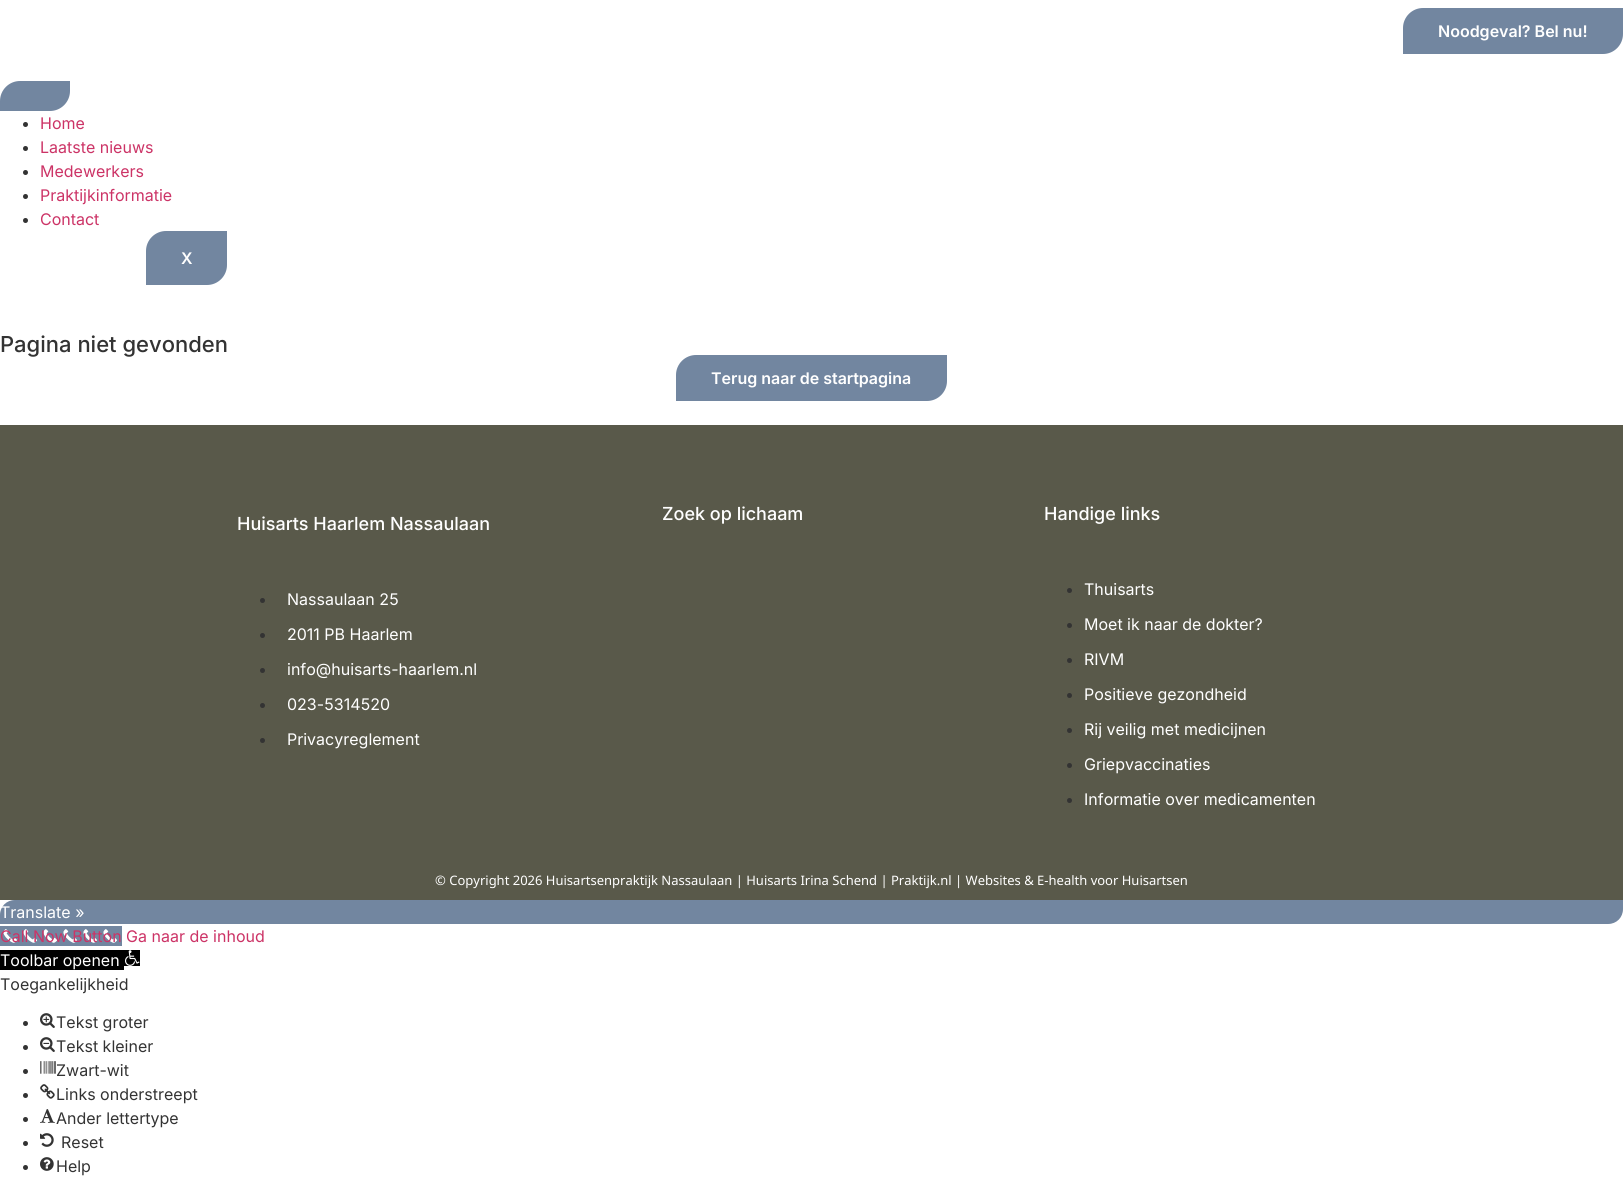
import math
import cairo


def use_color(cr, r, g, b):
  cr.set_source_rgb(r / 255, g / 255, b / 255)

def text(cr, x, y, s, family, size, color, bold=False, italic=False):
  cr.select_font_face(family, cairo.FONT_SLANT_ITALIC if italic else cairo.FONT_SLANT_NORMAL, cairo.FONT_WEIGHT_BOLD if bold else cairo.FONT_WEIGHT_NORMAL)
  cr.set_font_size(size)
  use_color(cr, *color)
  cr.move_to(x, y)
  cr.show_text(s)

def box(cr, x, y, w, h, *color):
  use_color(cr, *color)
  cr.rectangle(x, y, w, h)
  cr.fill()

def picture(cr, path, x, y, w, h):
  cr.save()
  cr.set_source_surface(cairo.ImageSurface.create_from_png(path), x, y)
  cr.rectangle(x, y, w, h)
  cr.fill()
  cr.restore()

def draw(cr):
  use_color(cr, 255, 255, 255)
  cr.paint()
  use_color(cr, 114, 134, 160)
  cr.new_path()
  cr.move_to(1423, 8)
  cr.line_to(1623, 8)
  cr.line_to(1623, 34)
  cr.curve_to(1623, 45, 1614, 54, 1603, 54)
  cr.line_to(1403, 54)
  cr.line_to(1403, 28)
  cr.curve_to(1403, 17, 1412, 8, 1423, 8)
  cr.close_path()
  cr.fill()
  cr.new_path()
  cr.move_to(20, 81)
  cr.line_to(70, 81)
  cr.line_to(70, 91)
  cr.curve_to(70, 102, 61, 111, 50, 111)
  cr.line_to(0, 111)
  cr.line_to(0, 101)
  cr.curve_to(0, 90, 9, 81, 20, 81)
  cr.close_path()
  cr.fill()
  use_color(cr, 51, 51, 51)
  cr.arc(25.5, 124.5, 2.5, 0, 2 * math.pi)
  cr.fill()
  cr.arc(25.5, 148.5, 2.5, 0, 2 * math.pi)
  cr.fill()
  cr.arc(25.5, 172.5, 2.5, 0, 2 * math.pi)
  cr.fill()
  cr.arc(25.5, 196.5, 2.5, 0, 2 * math.pi)
  cr.fill()
  cr.arc(25.5, 220.5, 2.5, 0, 2 * math.pi)
  cr.fill()
  use_color(cr, 114, 134, 160)
  cr.new_path()
  cr.move_to(166, 231)
  cr.line_to(227, 231)
  cr.line_to(227, 265)
  cr.curve_to(227, 276, 218, 285, 207, 285)
  cr.line_to(146, 285)
  cr.line_to(146, 251)
  cr.curve_to(146, 240, 155, 231, 166, 231)
  cr.close_path()
  cr.fill()
  cr.new_path()
  cr.move_to(696, 355)
  cr.line_to(947, 355)
  cr.line_to(947, 381)
  cr.curve_to(947, 392, 938, 401, 927, 401)
  cr.line_to(676, 401)
  cr.line_to(676, 375)
  cr.curve_to(676, 364, 685, 355, 696, 355)
  cr.close_path()
  cr.fill()
  box(cr, 0, 425, 1623, 475, 89, 89, 74)
  use_color(cr, 51, 51, 51)
  cr.arc(262.5, 600.5, 2.5, 0, 2 * math.pi)
  cr.fill()
  cr.arc(262.5, 635.5, 2.5, 0, 2 * math.pi)
  cr.fill()
  cr.arc(262.5, 670.5, 2.5, 0, 2 * math.pi)
  cr.fill()
  cr.arc(262.5, 705.5, 2.5, 0, 2 * math.pi)
  cr.fill()
  cr.arc(262.5, 740.5, 2.5, 0, 2 * math.pi)
  cr.fill()
  cr.arc(1069.5, 590.5, 2.5, 0, 2 * math.pi)
  cr.fill()
  cr.arc(1069.5, 625.5, 2.5, 0, 2 * math.pi)
  cr.fill()
  cr.arc(1069.5, 660.5, 2.5, 0, 2 * math.pi)
  cr.fill()
  cr.arc(1069.5, 695.5, 2.5, 0, 2 * math.pi)
  cr.fill()
  cr.arc(1069.5, 730.5, 2.5, 0, 2 * math.pi)
  cr.fill()
  cr.arc(1069.5, 765.5, 2.5, 0, 2 * math.pi)
  cr.fill()
  cr.arc(1069.5, 800.5, 2.5, 0, 2 * math.pi)
  cr.fill()
  use_color(cr, 114, 134, 160)
  cr.new_path()
  cr.move_to(15, 900)
  cr.line_to(1623, 900)
  cr.line_to(1623, 909)
  cr.curve_to(1623, 917.5, 1616.5, 924, 1608, 924)
  cr.line_to(0, 924)
  cr.line_to(0, 915)
  cr.curve_to(0, 906.5, 6.5, 900, 15, 900)
  cr.close_path()
  cr.fill()
  box(cr, 0, 926, 122, 20, 114, 134, 160)
  picture(cr, "img_01.png", 3, 929, 114, 14)
  box(cr, 0, 950, 124, 20, 0, 0, 0)
  box(cr, 124, 950, 16, 16, 0, 0, 0)
  picture(cr, "img_02.png", 125, 950, 15, 16)
  use_color(cr, 51, 51, 51)
  cr.arc(25.5, 1023.5, 2.5, 0, 2 * math.pi)
  cr.fill()
  picture(cr, "img_03.png", 40, 1013, 15, 15)
  cr.arc(25.5, 1047.5, 2.5, 0, 2 * math.pi)
  cr.fill()
  picture(cr, "img_04.png", 40, 1037, 15, 15)
  cr.arc(25.5, 1071.5, 2.5, 0, 2 * math.pi)
  cr.fill()
  picture(cr, "img_05.png", 40, 1061, 16, 13)
  cr.arc(25.5, 1095.5, 2.5, 0, 2 * math.pi)
  cr.fill()
  picture(cr, "img_06.png", 40, 1084, 15, 15)
  cr.arc(25.5, 1119.5, 2.5, 0, 2 * math.pi)
  cr.fill()
  picture(cr, "img_07.png", 40, 1109, 15, 14)
  cr.arc(25.5, 1143.5, 2.5, 0, 2 * math.pi)
  cr.fill()
  picture(cr, "img_08.png", 40, 1133, 14, 14)
  cr.arc(25.5, 1167.5, 2.5, 0, 2 * math.pi)
  cr.fill()
  picture(cr, "img_09.png", 40, 1157, 14, 14)
  text(cr, 1438, 37, "Noodgeval? Bel nu!", "Inter SemiBold", 16, (255, 255, 255))
  text(cr, 40, 129, "Home", "Inter", 16, (204, 51, 102))
  text(cr, 40, 153, "Laatste nieuws", "Inter", 16, (204, 51, 102))
  text(cr, 40, 177, "Medewerkers", "Inter", 16, (204, 51, 102))
  text(cr, 40, 201, "Praktijkinformatie", "Inter", 16, (204, 51, 102))
  text(cr, 40, 225, "Contact", "Inter", 16, (204, 51, 102))
  text(cr, 181, 264, "X", "Inter SemiBold", 16, (255, 255, 255))
  text(cr, 0, 352, "Pagina niet gevonden", "Inter Medium", 22, (51, 51, 51))
  text(cr, 711, 384, "Terug naar de startpagina", "Inter SemiBold", 16, (255, 255, 255))
  text(cr, 237, 530, "Huisarts Haarlem Nassaulaan", "Inter Medium", 18, (255, 255, 255))
  text(cr, 287, 605, "Nassaulaan 25", "Inter", 16, (255, 255, 255))
  text(cr, 287, 640, "2011 PB Haarlem", "Inter", 16, (255, 255, 255))
  text(cr, 287, 675, "info@huisarts-haarlem.nl", "Inter", 16, (255, 255, 255))
  text(cr, 287, 710, "023-5314520", "Inter", 16, (255, 255, 255))
  text(cr, 287, 745, "Privacyreglement", "Inter", 16, (255, 255, 255))
  text(cr, 662, 520, "Zoek op lichaam", "Inter Medium", 18, (255, 255, 255))
  text(cr, 1044, 520, "Handige links", "Inter Medium", 18, (255, 255, 255))
  text(cr, 1084, 595, "Thuisarts", "Inter", 16, (255, 255, 255))
  text(cr, 1084, 630, "Moet ik naar de dokter?", "Inter", 16, (255, 255, 255))
  text(cr, 1084, 665, "RIVM", "Inter", 16, (255, 255, 255))
  text(cr, 1084, 700, "Positieve gezondheid", "Inter", 16, (255, 255, 255))
  text(cr, 1084, 735, "Rij veilig met medicijnen", "Inter", 16, (255, 255, 255))
  text(cr, 1084, 770, "Griepvaccinaties", "Inter", 16, (255, 255, 255))
  text(cr, 1084, 805, "Informatie over medicamenten", "Inter", 16, (255, 255, 255))
  text(cr, 435, 885, "© Copyright 2026 Huisartsenpraktijk Nassaulaan | Huisarts Irina Schend | Praktijk.nl | Websites & E-health voor Huisartsen", "Noto Sans", 13, (255, 255, 255))
  text(cr, 0, 918, "Translate »", "Inter", 16, (255, 255, 255))
  text(cr, 0, 942, "Call Now Button Ga naar de inhoud", "Inter", 16, (204, 51, 102))
  text(cr, 0, 966, "Toolbar openen", "Inter", 16, (255, 255, 255))
  text(cr, 0, 990, "Toegankelijkheid", "Inter", 16, (51, 51, 51))
  text(cr, 56, 1028, "Tekst groter", "Inter", 16, (51, 51, 51))
  text(cr, 56, 1052, "Tekst kleiner", "Inter", 16, (51, 51, 51))
  text(cr, 56, 1076, "Zwart-wit", "Inter", 16, (51, 51, 51))
  text(cr, 56, 1100, "Links onderstreept", "Inter", 16, (51, 51, 51))
  text(cr, 56, 1124, "Ander lettertype", "Inter", 16, (51, 51, 51))
  text(cr, 61, 1148, "Reset", "Inter", 16, (51, 51, 51))
  text(cr, 56, 1172, "Help", "Inter", 16, (51, 51, 51))


surface = cairo.ImageSurface(cairo.FORMAT_RGB24, 1623, 1178)
cr = cairo.Context(surface)
options = cairo.FontOptions()
options.set_hint_metrics(cairo.HINT_METRICS_OFF)
options.set_hint_style(cairo.HINT_STYLE_NONE)
cr.set_font_options(options)
cr.set_miter_limit(4)
draw(cr)
surface.write_to_png("out.png")
